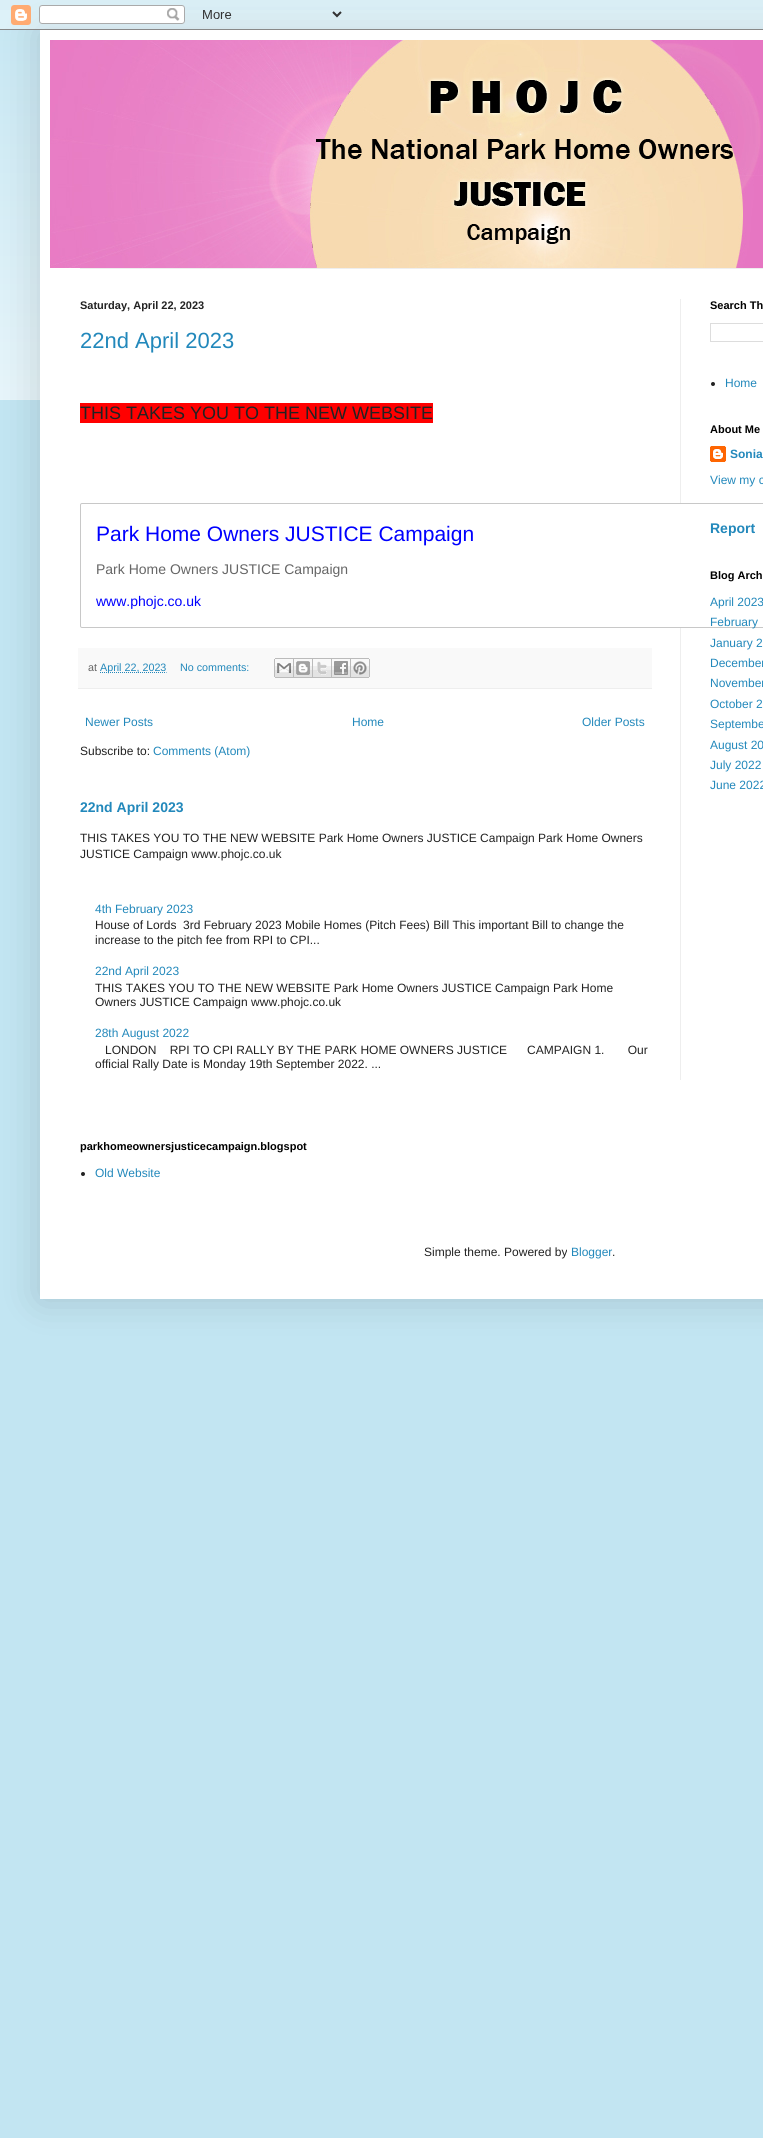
import math
import cairo


def use_color(cr, r, g, b):
  cr.set_source_rgb(r / 255, g / 255, b / 255)

def text(cr, x, y, s, family, size, color, bold=False, italic=False):
  cr.select_font_face(family, cairo.FONT_SLANT_ITALIC if italic else cairo.FONT_SLANT_NORMAL, cairo.FONT_WEIGHT_BOLD if bold else cairo.FONT_WEIGHT_NORMAL)
  cr.set_font_size(size)
  use_color(cr, *color)
  cr.move_to(x, y)
  cr.show_text(s)

def box(cr, x, y, w, h, *color):
  use_color(cr, *color)
  cr.rectangle(x, y, w, h)
  cr.fill()

def round_rect(cr, x, y, w, h, r):
  cr.new_sub_path()
  for i, (u, v) in enumerate([(x + w - r, y + h - r), (x + r, y + h - r), (x + r, y + r), (x + w - r, y + r)]):
    cr.arc(u, v, r, i * math.pi / 2, (i + 1) * math.pi / 2)
  cr.close_path()

def shadow(cr, x, y, w, h, r, blur, alpha):
  cr.push_group_with_content(cairo.CONTENT_ALPHA)
  cr.set_operator(cairo.OPERATOR_SOURCE)
  for i in range(15, -16, -2):
    e = blur * i / 6
    if min(w, h) + 2 * e > 0:
      cr.set_source_rgba(0, 0, 0, alpha * math.erfc((i - 1) / 8.5) / 2)
      round_rect(cr, x - e, y - e, w + 2 * e, h + 2 * e, max(0, min(r + e + blur * .6, min(w, h) / 2 + e)))
      cr.fill()
  cr.mask(cr.pop_group())

def picture(cr, path, x, y, w, h):
  cr.save()
  cr.set_source_surface(cairo.ImageSurface.create_from_png(path), x, y)
  cr.rectangle(x, y, w, h)
  cr.fill()
  cr.restore()

def draw(cr):
  use_color(cr, 194, 229, 242)
  cr.paint()
  picture(cr, "img_02.png", 0, 10, 763, 390)
  use_color(cr, 0, 0, 0)
  shadow(cr, 40, 30, 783, 1269, 0, 20, 0.15)
  picture(cr, "img_01.png", 0, 0, 763, 30)
  box(cr, 40, 30, 723, 1269, 255, 255, 255)
  picture(cr, "img_03.png", 50, 40, 713, 228)
  box(cr, 80, 268, 683, 1, 238, 238, 238)
  box(cr, 680, 299, 1, 781, 238, 238, 238)
  box(cr, 80, 403, 353, 20, 255, 0, 0)
  use_color(cr, 255, 255, 255)
  round_rect(cr, 80.5, 503.5, 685, 124, 1.5)
  cr.fill_preserve()
  use_color(cr, 200, 200, 200)
  cr.set_line_width(1)
  cr.stroke()
  box(cr, 78, 648, 574, 40, 249, 249, 249)
  box(cr, 78, 688, 574, 1, 238, 238, 238)
  cr.new_path()
  cr.move_to(100, 672.5)
  cr.line_to(166.5, 672.5)
  use_color(cr, 34, 136, 187)
  cr.set_dash([1, 1])
  cr.stroke()
  picture(cr, "img_04.png", 274, 658, 20, 20)
  picture(cr, "img_05.png", 294, 658, 19, 20)
  picture(cr, "img_06.png", 313, 658, 19, 20)
  picture(cr, "img_07.png", 332, 658, 19, 20)
  picture(cr, "img_08.png", 351, 658, 19, 20)
  cr.rectangle(710.5, 323.5, 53, 18)
  use_color(cr, 221, 221, 221)
  cr.set_dash([])
  cr.stroke()
  use_color(cr, 34, 34, 34)
  cr.arc(713, 384, 2, 0, 2 * math.pi)
  cr.fill()
  picture(cr, "img_09.png", 710, 446, 16, 16)
  cr.arc(83, 1174, 2, 0, 2 * math.pi)
  cr.fill()
  text(cr, 80, 309, "Saturday, April 22, 2023", "Liberation Sans", 11, (34, 34, 34), bold=True)
  text(cr, 80, 348, "22nd April 2023", "Liberation Sans", 22, (34, 136, 187))
  text(cr, 80, 419, "THIS TAKES YOU TO THE NEW WEBSITE", "Liberation Sans", 18, (34, 34, 34))
  text(cr, 96, 541, "Park Home Owners JUSTICE Campaign", "Liberation Sans", 21, (0, 0, 255))
  text(cr, 96, 574, "Park Home Owners JUSTICE Campaign", "Liberation Sans", 14, (102, 102, 102))
  text(cr, 96, 606, "www.phojc.co.uk", "Liberation Sans", 14, (0, 0, 255))
  text(cr, 88, 671, "at", "Liberation Sans", 10.75, (102, 102, 102))
  text(cr, 100, 671, "April 22, 2023", "Liberation Sans", 10.75, (34, 136, 187))
  text(cr, 180, 671, "No comments:", "Liberation Sans", 10.75, (34, 136, 187))
  text(cr, 85, 726, "Newer Posts", "Liberation Sans", 12, (34, 136, 187))
  text(cr, 352, 726, "Home", "Liberation Sans", 12, (34, 136, 187))
  text(cr, 582, 726, "Older Posts", "Liberation Sans", 12, (34, 136, 187))
  text(cr, 80, 755, "Subscribe to:", "Liberation Sans", 12, (34, 34, 34))
  text(cr, 153, 755, "Comments (Atom)", "Liberation Sans", 12, (34, 136, 187))
  text(cr, 80, 812, "22nd April 2023", "Liberation Sans", 14, (34, 136, 187), bold=True)
  text(cr, 80, 842, "THIS TAKES YOU TO THE NEW WEBSITE Park Home Owners JUSTICE Campaign Park Home Owners", "Liberation Sans", 12, (34, 34, 34))
  text(cr, 80, 858, "JUSTICE Campaign www.phojc.co.uk", "Liberation Sans", 12, (34, 34, 34))
  text(cr, 95, 913, "4th February 2023", "Liberation Sans", 12, (34, 136, 187))
  text(cr, 95, 929, "House of Lords  3rd February 2023 Mobile Homes (Pitch Fees) Bill This important Bill to change the", "Liberation Sans", 12, (34, 34, 34))
  text(cr, 95, 944, "increase to the pitch fee from RPI to CPI...", "Liberation Sans", 12, (34, 34, 34))
  text(cr, 95, 975, "22nd April 2023", "Liberation Sans", 12, (34, 136, 187))
  text(cr, 95, 992, "THIS TAKES YOU TO THE NEW WEBSITE Park Home Owners JUSTICE Campaign Park Home", "Liberation Sans", 12, (34, 34, 34))
  text(cr, 95, 1006, "Owners JUSTICE Campaign www.phojc.co.uk", "Liberation Sans", 12, (34, 34, 34))
  text(cr, 95, 1037, "28th August 2022", "Liberation Sans", 12, (34, 136, 187))
  text(cr, 105, 1054, "LONDON    RPI TO CPI RALLY BY THE PARK HOME OWNERS JUSTICE      CAMPAIGN 1.       Our", "Liberation Sans", 12, (34, 34, 34))
  text(cr, 95, 1068, "official Rally Date is Monday 19th September 2022. ...", "Liberation Sans", 12, (34, 34, 34))
  text(cr, 710, 309, "Search Th", "Liberation Sans", 11, (0, 0, 0), bold=True)
  text(cr, 725, 387, "Home", "Liberation Sans", 12, (34, 136, 187))
  text(cr, 710, 433, "About Me", "Liberation Sans", 11, (0, 0, 0), bold=True)
  text(cr, 730, 458, "Sonia", "Liberation Sans", 12, (34, 136, 187), bold=True)
  text(cr, 710, 484, "View my c", "Liberation Sans", 12, (34, 136, 187))
  text(cr, 710, 533, "Report", "Liberation Sans", 14, (34, 136, 187), bold=True)
  text(cr, 710, 579, "Blog Arch", "Liberation Sans", 11, (0, 0, 0), bold=True)
  text(cr, 710, 606, "April 2023", "Liberation Sans", 12, (34, 136, 187))
  text(cr, 710, 626, "February", "Liberation Sans", 12, (34, 136, 187))
  text(cr, 710, 647, "January 2", "Liberation Sans", 12, (34, 136, 187))
  text(cr, 710, 667, "December", "Liberation Sans", 12, (34, 136, 187))
  text(cr, 710, 687, "November", "Liberation Sans", 12, (34, 136, 187))
  text(cr, 710, 708, "October 2", "Liberation Sans", 12, (34, 136, 187))
  text(cr, 710, 728, "Septembe", "Liberation Sans", 12, (34, 136, 187))
  text(cr, 710, 749, "August 20", "Liberation Sans", 12, (34, 136, 187))
  text(cr, 710, 769, "July 2022", "Liberation Sans", 12, (34, 136, 187))
  text(cr, 710, 789, "June 2022", "Liberation Sans", 12, (34, 136, 187))
  text(cr, 80, 1150, "parkhomeownersjusticecampaign.blogspot", "Liberation Sans", 11, (0, 0, 0), bold=True)
  text(cr, 95, 1177, "Old Website", "Liberation Sans", 12, (34, 136, 187))
  text(cr, 424, 1256, "Simple theme. Powered by", "Liberation Sans", 12, (34, 34, 34))
  text(cr, 571, 1256, "Blogger", "Liberation Sans", 12, (34, 136, 187))
  text(cr, 612, 1256, ".", "Liberation Sans", 12, (34, 34, 34))


surface = cairo.ImageSurface(cairo.FORMAT_RGB24, 763, 2138)
cr = cairo.Context(surface)
options = cairo.FontOptions()
options.set_hint_metrics(cairo.HINT_METRICS_OFF)
options.set_hint_style(cairo.HINT_STYLE_NONE)
cr.set_font_options(options)
cr.set_miter_limit(4)
draw(cr)
surface.write_to_png("out.png")
